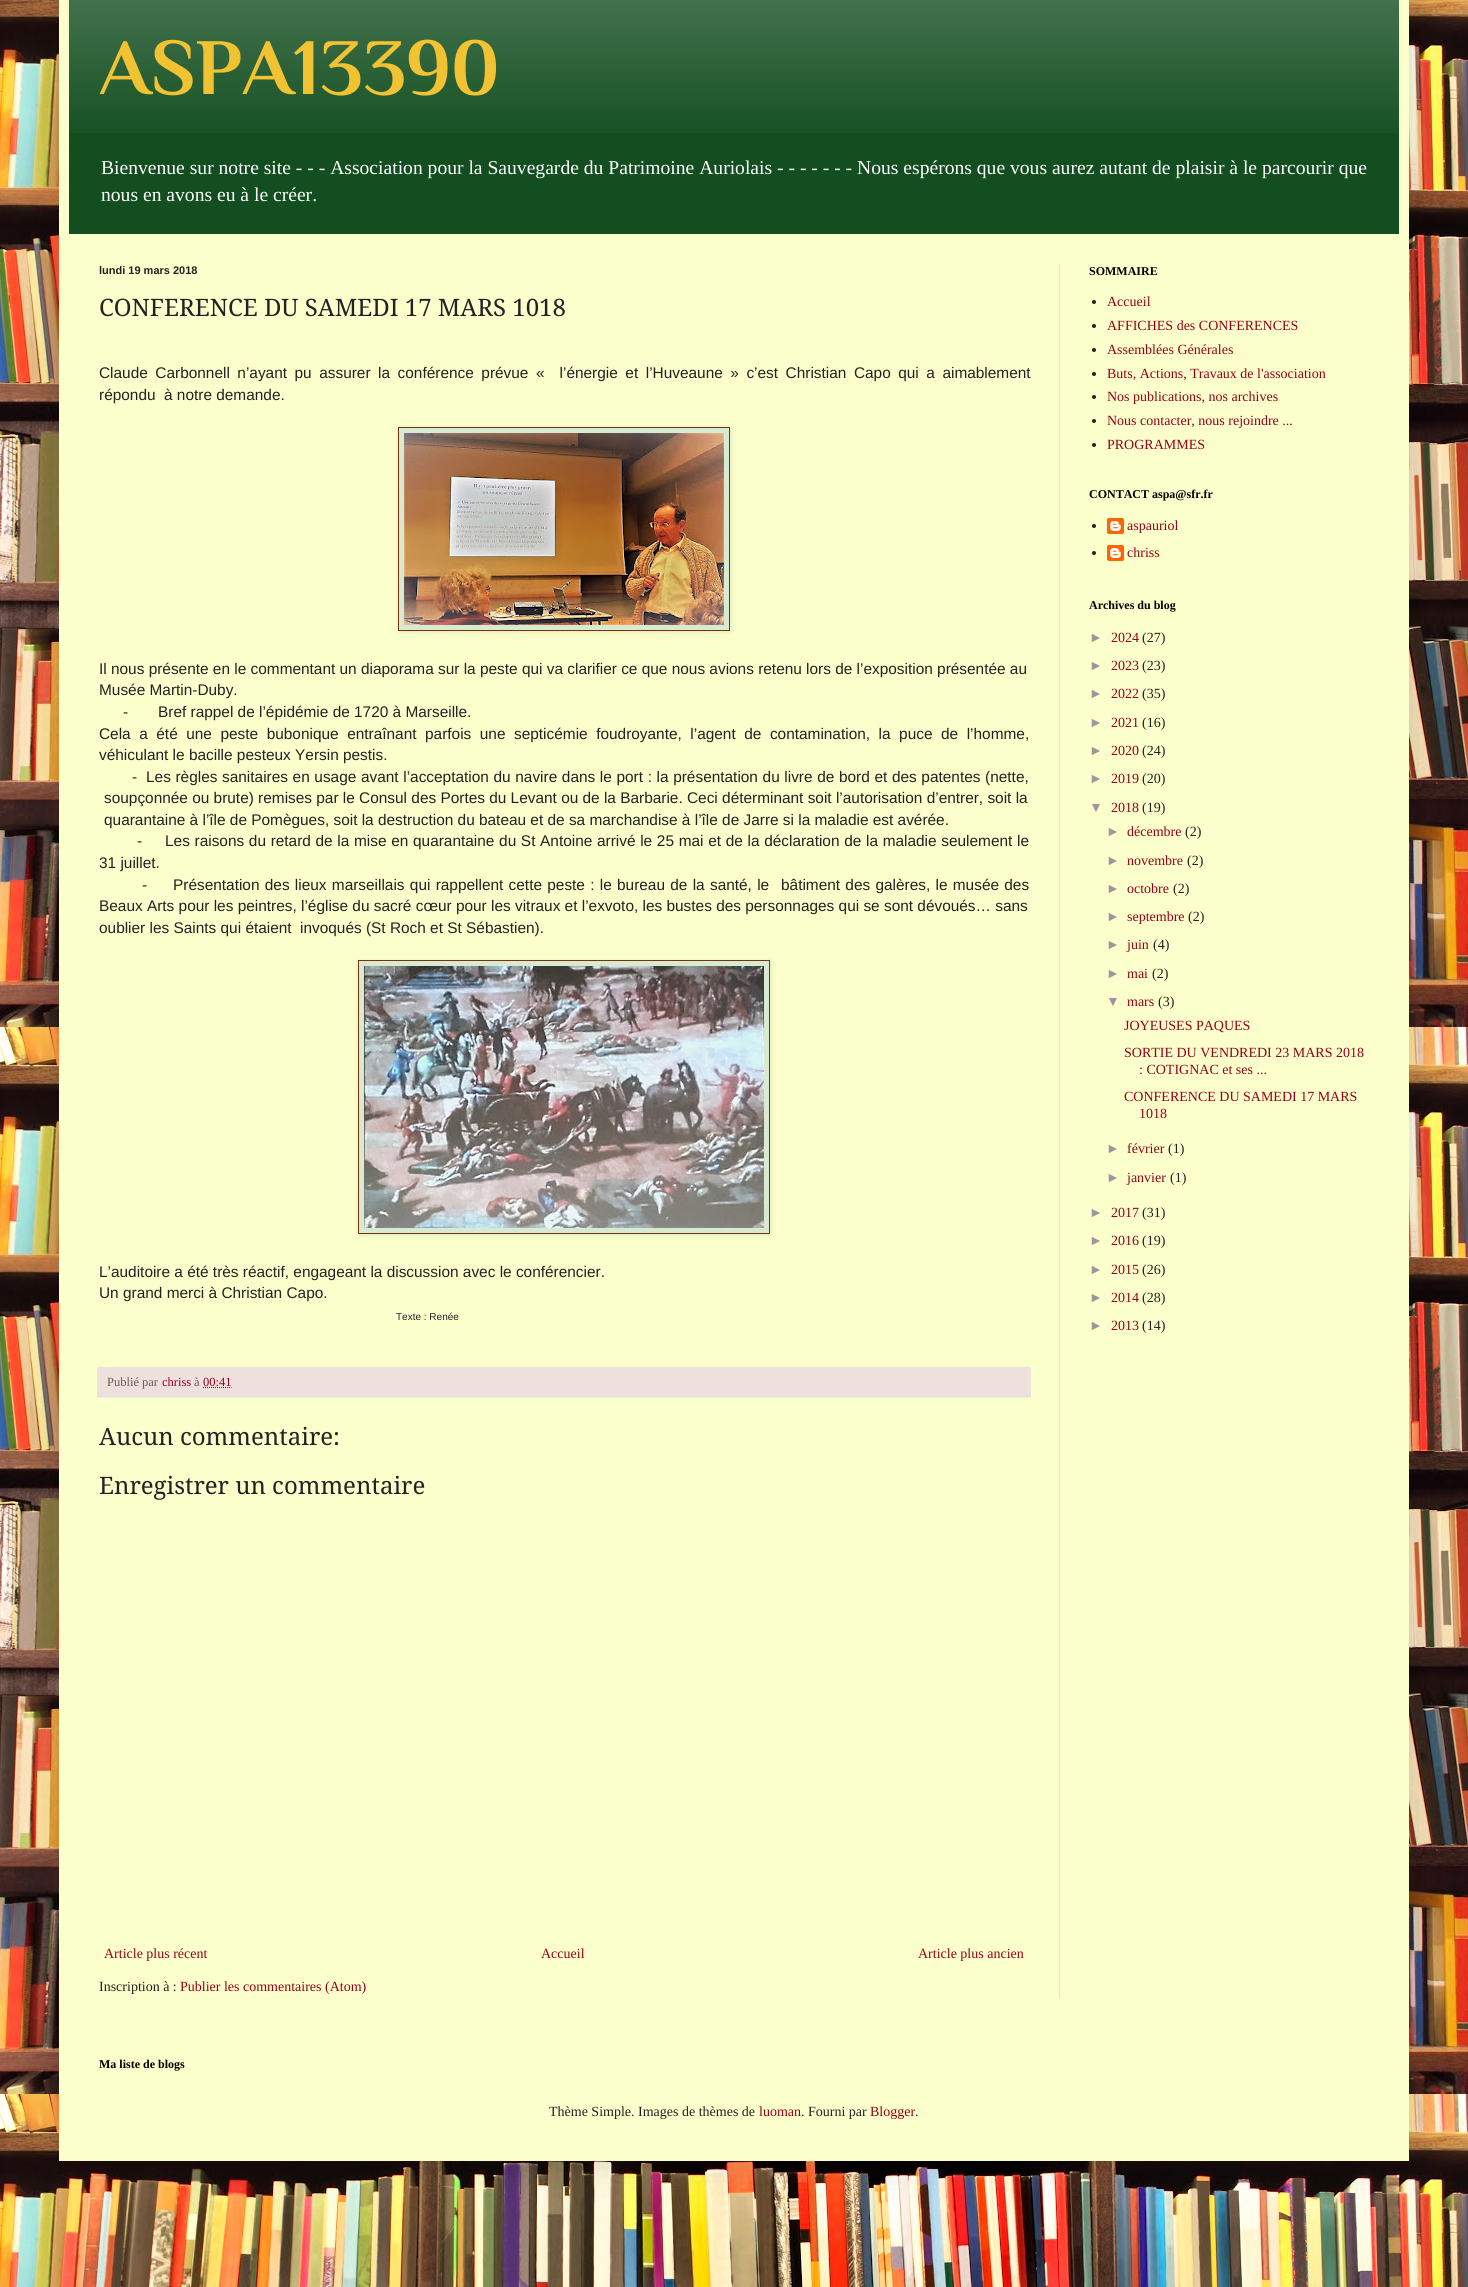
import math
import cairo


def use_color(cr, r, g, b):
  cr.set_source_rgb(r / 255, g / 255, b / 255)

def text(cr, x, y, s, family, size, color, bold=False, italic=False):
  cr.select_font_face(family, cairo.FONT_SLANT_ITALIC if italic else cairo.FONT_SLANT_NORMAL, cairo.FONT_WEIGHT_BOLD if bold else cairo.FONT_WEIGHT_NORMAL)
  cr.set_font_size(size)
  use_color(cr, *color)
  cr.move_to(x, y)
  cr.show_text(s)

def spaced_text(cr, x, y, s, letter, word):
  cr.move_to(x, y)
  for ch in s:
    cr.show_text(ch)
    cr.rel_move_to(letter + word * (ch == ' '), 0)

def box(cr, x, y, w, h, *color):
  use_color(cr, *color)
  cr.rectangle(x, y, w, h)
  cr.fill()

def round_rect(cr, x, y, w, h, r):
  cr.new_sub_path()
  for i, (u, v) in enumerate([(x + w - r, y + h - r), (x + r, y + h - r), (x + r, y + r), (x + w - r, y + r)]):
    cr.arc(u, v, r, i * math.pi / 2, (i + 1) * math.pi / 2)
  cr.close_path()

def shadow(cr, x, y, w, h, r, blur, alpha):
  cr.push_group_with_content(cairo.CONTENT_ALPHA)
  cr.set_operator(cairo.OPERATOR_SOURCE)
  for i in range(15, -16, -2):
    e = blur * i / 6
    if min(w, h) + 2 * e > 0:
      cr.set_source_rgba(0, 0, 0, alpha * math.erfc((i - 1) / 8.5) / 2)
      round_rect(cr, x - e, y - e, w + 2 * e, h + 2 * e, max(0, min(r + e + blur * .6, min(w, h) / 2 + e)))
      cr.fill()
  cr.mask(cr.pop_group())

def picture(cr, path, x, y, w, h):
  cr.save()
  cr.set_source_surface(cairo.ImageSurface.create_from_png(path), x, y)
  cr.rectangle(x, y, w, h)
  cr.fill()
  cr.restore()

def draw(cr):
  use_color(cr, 255, 255, 255)
  cr.paint()
  picture(cr, "img_01.png", 0, 0, 1468, 2287)
  use_color(cr, 0, 0, 0)
  shadow(cr, 59, -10, 1350, 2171, 0, 20, 0.15)
  box(cr, 59, 0, 1350, 2161, 250, 255, 204)
  box(cr, 69, 0, 1330, 234, 19, 78, 32)
  picture(cr, "img_02.png", 69, 0, 1330, 133)
  box(cr, 1059, 264, 1, 1733, 238, 221, 221)
  use_color(cr, 0, 0, 0)
  shadow(cr, 399, 428, 332, 204, 0, 2.5, 0.1)
  use_color(cr, 217, 234, 211)
  cr.rectangle(398.5, 427.5, 331, 203)
  cr.fill_preserve()
  use_color(cr, 121, 51, 12)
  cr.set_line_width(1)
  cr.stroke()
  picture(cr, "img_03.png", 404, 433, 320, 192)
  use_color(cr, 0, 0, 0)
  shadow(cr, 359, 961, 412, 274, 0, 2.5, 0.1)
  use_color(cr, 217, 234, 211)
  cr.rectangle(358.5, 960.5, 411, 273)
  cr.fill_preserve()
  use_color(cr, 121, 51, 12)
  cr.stroke()
  picture(cr, "img_04.png", 364, 966, 400, 262)
  box(cr, 97, 1367, 934, 30, 238, 224, 221)
  box(cr, 97, 1397, 934, 1, 238, 238, 238)
  cr.new_path()
  cr.move_to(203, 1387.5)
  cr.line_to(231.5, 1387.5)
  use_color(cr, 153, 0, 25)
  cr.set_dash([1, 1])
  cr.stroke()
  use_color(cr, 34, 34, 34)
  cr.arc(1094, 302, 2, 0, 2 * math.pi)
  cr.fill()
  cr.arc(1094, 326, 2, 0, 2 * math.pi)
  cr.fill()
  cr.arc(1094, 350, 2, 0, 2 * math.pi)
  cr.fill()
  cr.arc(1094, 374, 2, 0, 2 * math.pi)
  cr.fill()
  cr.arc(1094, 397, 2, 0, 2 * math.pi)
  cr.fill()
  cr.arc(1094, 421, 2, 0, 2 * math.pi)
  cr.fill()
  cr.arc(1094, 445, 2, 0, 2 * math.pi)
  cr.fill()
  cr.arc(1094, 526, 2, 0, 2 * math.pi)
  cr.fill()
  picture(cr, "img_05.png", 1107, 518, 17, 16)
  cr.arc(1094, 553, 2, 0, 2 * math.pi)
  cr.fill()
  picture(cr, "img_05.png", 1107, 545, 17, 16)
  text(cr, 99, 94, "ASPA13390", "Philosopher", 80, (241, 194, 50), bold=True)
  text(cr, 101, 174, "Bienvenue sur notre site - - - Association pour la Sauvegarde du Patrimoine Auriolais - - - - - - - Nous espérons que vous aurez autant de plaisir à le parcourir que", "Liberation Serif", 19.6, (255, 255, 255))
  text(cr, 101, 201, "nous en avons eu à le créer.", "Liberation Serif", 19.6, (255, 255, 255))
  text(cr, 99, 274, "lundi 19 mars 2018", "Liberation Sans", 11, (34, 34, 34), bold=True)
  text(cr, 99, 316, "CONFERENCE DU SAMEDI 17 MARS 1018", "Droid Serif", 24, (34, 34, 34))
  cr.select_font_face("Liberation Sans")
  cr.set_font_size(15.4)
  spaced_text(cr, 99, 378, "Claude Carbonnell n’ayant pu assurer la conférence prévue «  l’énergie et l’Huveaune » c’est Christian Capo qui a aimablement", 0, 3.25)
  text(cr, 99, 400, "répondu", "Liberation Sans", 15.4, (34, 34, 34))
  text(cr, 164, 400, "à notre demande.", "Liberation Sans", 15.4, (34, 34, 34))
  text(cr, 99, 674, "Il nous présente en le commentant un diaporama sur la peste qui va clarifier ce que nous avions retenu lors de l’exposition présentée au", "Liberation Sans", 15.4, (34, 34, 34))
  text(cr, 99, 695, "Musée Martin-Duby.", "Liberation Sans", 15.4, (34, 34, 34))
  text(cr, 123, 717, "-", "Liberation Sans", 15.4, (34, 34, 34))
  text(cr, 158, 717, "Bref rappel de l’épidémie de 1720 à Marseille.", "Liberation Sans", 15.4, (34, 34, 34))
  spaced_text(cr, 99, 739, "Cela a été une peste bubonique entraînant parfois une septicémie foudroyante, l’agent de contamination, la puce de l’homme,", 0, 4.25)
  text(cr, 99, 760, "véhiculant le bacille pesteux Yersin pestis.", "Liberation Sans", 15.4, (34, 34, 34))
  text(cr, 132, 782, "-", "Liberation Sans", 15.4, (34, 34, 34))
  spaced_text(cr, 146, 782, "Les règles sanitaires en usage avant l’acceptation du navire dans le port : la présentation du livre de bord et des patentes (nette,", 0, 0.35)
  text(cr, 104, 803, "soupçonnée ou brute) remises par le Consul des Portes du Levant ou de la Barbarie. Ceci déterminant soit l’autorisation d’entrer, soit la", "Liberation Sans", 15.4, (34, 34, 34))
  text(cr, 104, 825, "quarantaine à l’île de Pomègues, soit la destruction du bateau et de sa marchandise à l’île de Jarre si la maladie est avérée.", "Liberation Sans", 15.4, (34, 34, 34))
  text(cr, 137, 846, "-", "Liberation Sans", 15.4, (34, 34, 34))
  spaced_text(cr, 165, 846, "Les raisons du retard de la mise en quarantaine du St Antoine arrivé le 25 mai et de la déclaration de la maladie seulement le", 0, 0.4)
  text(cr, 99, 868, "31 juillet.", "Liberation Sans", 15.4, (34, 34, 34))
  text(cr, 142, 890, "-", "Liberation Sans", 15.4, (34, 34, 34))
  spaced_text(cr, 173, 890, "Présentation des lieux marseillais qui rappellent cette peste : le bureau de la santé, le", 0, 1)
  spaced_text(cr, 781, 890, "bâtiment des galères, le musée des", 0, 1)
  text(cr, 99, 911, "Beaux Arts pour les peintres, l’église du sacré cœur pour les vitraux et l’exvoto, les bustes des personnages qui se sont dévoués… sans", "Liberation Sans", 15.4, (34, 34, 34))
  text(cr, 99, 933, "oublier les Saints qui étaient", "Liberation Sans", 15.4, (34, 34, 34))
  text(cr, 300, 933, "invoqués (St Roch et St Sébastien).", "Liberation Sans", 15.4, (34, 34, 34))
  text(cr, 99, 1277, "L’auditoire a été très réactif, engageant la discussion avec le conférencier.", "Liberation Sans", 15.4, (34, 34, 34))
  text(cr, 99, 1298, "Un grand merci à Christian Capo.", "Liberation Sans", 15.4, (34, 34, 34))
  text(cr, 396, 1320, "Texte : Renée", "Liberation Sans", 10, (34, 34, 34))
  text(cr, 107, 1386, "Publié par", "Liberation Serif", 12.5, (102, 92, 85))
  text(cr, 162, 1386, "chriss", "Liberation Serif", 12.5, (153, 0, 25))
  text(cr, 194, 1386, "à", "Liberation Serif", 12.5, (102, 92, 85))
  text(cr, 203, 1386, "00:41", "Liberation Serif", 12.5, (153, 0, 25))
  text(cr, 99, 1445, "Aucun commentaire:", "Droid Serif", 24, (34, 34, 34))
  text(cr, 99, 1494, "Enregistrer un commentaire", "Droid Serif", 24, (34, 34, 34))
  text(cr, 104, 1958, "Article plus récent", "Liberation Serif", 14, (153, 0, 25))
  text(cr, 541, 1958, "Accueil", "Liberation Serif", 14, (153, 0, 25))
  text(cr, 918, 1958, "Article plus ancien", "Liberation Serif", 14, (153, 0, 25))
  text(cr, 99, 1991, "Inscription à :", "Liberation Serif", 14, (34, 34, 34))
  text(cr, 180, 1991, "Publier les commentaires (Atom)", "Liberation Serif", 14, (153, 0, 25))
  text(cr, 1089, 275, "SOMMAIRE", "Liberation Serif", 12, (0, 0, 0), bold=True)
  text(cr, 1107, 306, "Accueil", "Liberation Serif", 14, (153, 0, 25))
  text(cr, 1107, 330, "AFFICHES des CONFERENCES", "Liberation Serif", 14, (153, 0, 25))
  text(cr, 1107, 354, "Assemblées Générales", "Liberation Serif", 14, (153, 0, 25))
  text(cr, 1107, 378, "Buts, Actions, Travaux de l'association", "Liberation Serif", 14, (153, 0, 25))
  text(cr, 1107, 401, "Nos publications, nos archives", "Liberation Serif", 14, (153, 0, 25))
  text(cr, 1107, 425, "Nous contacter, nous rejoindre ...", "Liberation Serif", 14, (153, 0, 25))
  text(cr, 1107, 449, "PROGRAMMES", "Liberation Serif", 14, (153, 0, 25))
  text(cr, 1089, 498, "CONTACT aspa@sfr.fr", "Liberation Serif", 12, (0, 0, 0), bold=True)
  text(cr, 1127, 530, "aspauriol", "Liberation Serif", 14, (153, 0, 25))
  text(cr, 1127, 557, "chriss", "Liberation Serif", 14, (153, 0, 25))
  text(cr, 1089, 609, "Archives du blog", "Liberation Serif", 12, (0, 0, 0), bold=True)
  text(cr, 1089, 642, "►", "Liberation Sans", 14, (153, 153, 153))
  text(cr, 1111, 642, "2024", "Liberation Serif", 14, (153, 0, 25))
  text(cr, 1142, 642, "(27)", "Liberation Serif", 14, (34, 34, 34))
  text(cr, 1089, 670, "►", "Liberation Sans", 14, (153, 153, 153))
  text(cr, 1111, 670, "2023", "Liberation Serif", 14, (153, 0, 25))
  text(cr, 1142, 670, "(23)", "Liberation Serif", 14, (34, 34, 34))
  text(cr, 1089, 698, "►", "Liberation Sans", 14, (153, 153, 153))
  text(cr, 1111, 698, "2022", "Liberation Serif", 14, (153, 0, 25))
  text(cr, 1142, 698, "(35)", "Liberation Serif", 14, (34, 34, 34))
  text(cr, 1089, 727, "►", "Liberation Sans", 14, (153, 153, 153))
  text(cr, 1111, 727, "2021", "Liberation Serif", 14, (153, 0, 25))
  text(cr, 1142, 727, "(16)", "Liberation Serif", 14, (34, 34, 34))
  text(cr, 1089, 755, "►", "Liberation Sans", 14, (153, 153, 153))
  text(cr, 1111, 755, "2020", "Liberation Serif", 14, (153, 0, 25))
  text(cr, 1142, 755, "(24)", "Liberation Serif", 14, (34, 34, 34))
  text(cr, 1089, 783, "►", "Liberation Sans", 14, (153, 153, 153))
  text(cr, 1111, 783, "2019", "Liberation Serif", 14, (153, 0, 25))
  text(cr, 1142, 783, "(20)", "Liberation Serif", 14, (34, 34, 34))
  text(cr, 1089, 812, "▼", "Liberation Sans", 14, (153, 153, 153))
  text(cr, 1111, 812, "2018", "Liberation Serif", 14, (153, 0, 25))
  text(cr, 1142, 812, "(19)", "Liberation Serif", 14, (34, 34, 34))
  text(cr, 1106, 836, "►", "Liberation Sans", 14, (153, 153, 153))
  text(cr, 1127, 836, "décembre", "Liberation Serif", 14, (153, 0, 25))
  text(cr, 1185, 836, "(2)", "Liberation Serif", 14, (34, 34, 34))
  text(cr, 1106, 865, "►", "Liberation Sans", 14, (153, 153, 153))
  text(cr, 1127, 865, "novembre", "Liberation Serif", 14, (153, 0, 25))
  text(cr, 1187, 865, "(2)", "Liberation Serif", 14, (34, 34, 34))
  text(cr, 1106, 893, "►", "Liberation Sans", 14, (153, 153, 153))
  text(cr, 1127, 893, "octobre", "Liberation Serif", 14, (153, 0, 25))
  text(cr, 1173, 893, "(2)", "Liberation Serif", 14, (34, 34, 34))
  text(cr, 1106, 921, "►", "Liberation Sans", 14, (153, 153, 153))
  text(cr, 1127, 921, "septembre", "Liberation Serif", 14, (153, 0, 25))
  text(cr, 1188, 921, "(2)", "Liberation Serif", 14, (34, 34, 34))
  text(cr, 1106, 949, "►", "Liberation Sans", 14, (153, 153, 153))
  text(cr, 1127, 949, "juin", "Liberation Serif", 14, (153, 0, 25))
  text(cr, 1153, 949, "(4)", "Liberation Serif", 14, (34, 34, 34))
  text(cr, 1106, 978, "►", "Liberation Sans", 14, (153, 153, 153))
  text(cr, 1127, 978, "mai", "Liberation Serif", 14, (153, 0, 25))
  text(cr, 1152, 978, "(2)", "Liberation Serif", 14, (34, 34, 34))
  text(cr, 1106, 1006, "▼", "Liberation Sans", 14, (153, 153, 153))
  text(cr, 1127, 1006, "mars", "Liberation Serif", 14, (153, 0, 25))
  text(cr, 1158, 1006, "(3)", "Liberation Serif", 14, (34, 34, 34))
  text(cr, 1124, 1030, "JOYEUSES PAQUES", "Liberation Serif", 14, (153, 0, 25))
  text(cr, 1124, 1057, "SORTIE DU VENDREDI 23 MARS 2018", "Liberation Serif", 14, (153, 0, 25))
  text(cr, 1139, 1074, ": COTIGNAC et ses ...", "Liberation Serif", 14, (153, 0, 25))
  text(cr, 1124, 1101, "CONFERENCE DU SAMEDI 17 MARS", "Liberation Serif", 14, (153, 0, 25))
  text(cr, 1139, 1118, "1018", "Liberation Serif", 14, (153, 0, 25))
  text(cr, 1106, 1153, "►", "Liberation Sans", 14, (153, 153, 153))
  text(cr, 1127, 1153, "février", "Liberation Serif", 14, (153, 0, 25))
  text(cr, 1168, 1153, "(1)", "Liberation Serif", 14, (34, 34, 34))
  text(cr, 1106, 1182, "►", "Liberation Sans", 14, (153, 153, 153))
  text(cr, 1127, 1182, "janvier", "Liberation Serif", 14, (153, 0, 25))
  text(cr, 1170, 1182, "(1)", "Liberation Serif", 14, (34, 34, 34))
  text(cr, 1089, 1217, "►", "Liberation Sans", 14, (153, 153, 153))
  text(cr, 1111, 1217, "2017", "Liberation Serif", 14, (153, 0, 25))
  text(cr, 1142, 1217, "(31)", "Liberation Serif", 14, (34, 34, 34))
  text(cr, 1089, 1245, "►", "Liberation Sans", 14, (153, 153, 153))
  text(cr, 1111, 1245, "2016", "Liberation Serif", 14, (153, 0, 25))
  text(cr, 1142, 1245, "(19)", "Liberation Serif", 14, (34, 34, 34))
  text(cr, 1089, 1274, "►", "Liberation Sans", 14, (153, 153, 153))
  text(cr, 1111, 1274, "2015", "Liberation Serif", 14, (153, 0, 25))
  text(cr, 1142, 1274, "(26)", "Liberation Serif", 14, (34, 34, 34))
  text(cr, 1089, 1302, "►", "Liberation Sans", 14, (153, 153, 153))
  text(cr, 1111, 1302, "2014", "Liberation Serif", 14, (153, 0, 25))
  text(cr, 1142, 1302, "(28)", "Liberation Serif", 14, (34, 34, 34))
  text(cr, 1089, 1330, "►", "Liberation Sans", 14, (153, 153, 153))
  text(cr, 1111, 1330, "2013", "Liberation Serif", 14, (153, 0, 25))
  text(cr, 1142, 1330, "(14)", "Liberation Serif", 14, (34, 34, 34))
  text(cr, 99, 2068, "Ma liste de blogs", "Liberation Serif", 12, (0, 0, 0), bold=True)
  text(cr, 549, 2116, "Thème Simple. Images de thèmes de", "Liberation Serif", 14, (34, 34, 34))
  text(cr, 759, 2116, "luoman", "Liberation Serif", 14, (153, 0, 25))
  text(cr, 801, 2116, ". Fourni par", "Liberation Serif", 14, (34, 34, 34))
  text(cr, 870, 2116, "Blogger", "Liberation Serif", 14, (153, 0, 25))
  text(cr, 915, 2116, ".", "Liberation Serif", 14, (34, 34, 34))


surface = cairo.ImageSurface(cairo.FORMAT_RGB24, 1468, 2287)
cr = cairo.Context(surface)
options = cairo.FontOptions()
options.set_hint_metrics(cairo.HINT_METRICS_OFF)
options.set_hint_style(cairo.HINT_STYLE_NONE)
cr.set_font_options(options)
cr.set_miter_limit(4)
draw(cr)
surface.write_to_png("out.png")
